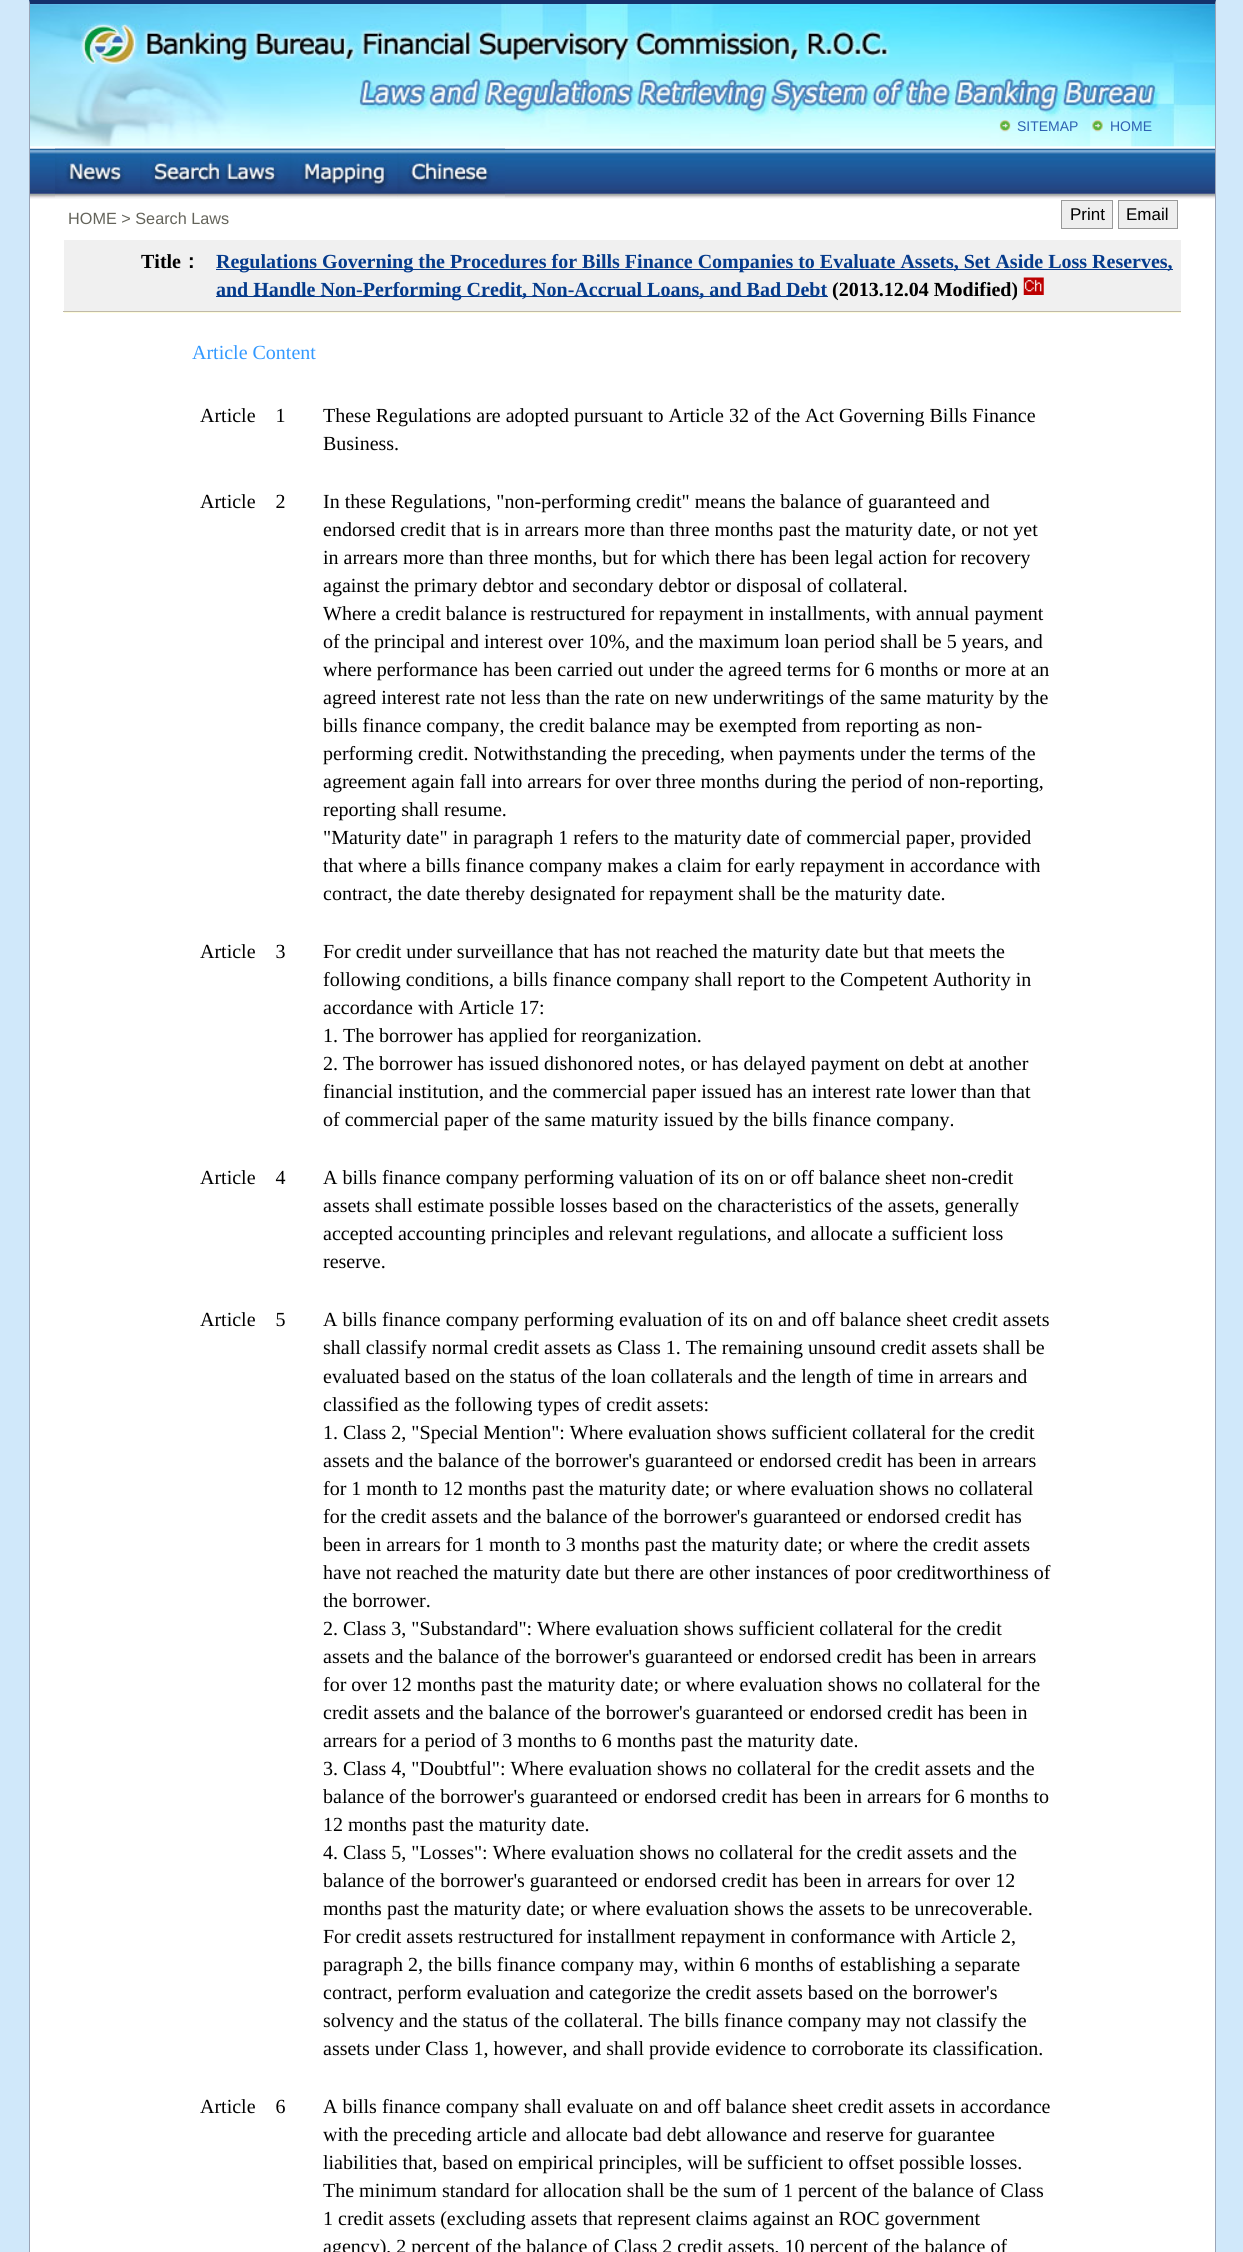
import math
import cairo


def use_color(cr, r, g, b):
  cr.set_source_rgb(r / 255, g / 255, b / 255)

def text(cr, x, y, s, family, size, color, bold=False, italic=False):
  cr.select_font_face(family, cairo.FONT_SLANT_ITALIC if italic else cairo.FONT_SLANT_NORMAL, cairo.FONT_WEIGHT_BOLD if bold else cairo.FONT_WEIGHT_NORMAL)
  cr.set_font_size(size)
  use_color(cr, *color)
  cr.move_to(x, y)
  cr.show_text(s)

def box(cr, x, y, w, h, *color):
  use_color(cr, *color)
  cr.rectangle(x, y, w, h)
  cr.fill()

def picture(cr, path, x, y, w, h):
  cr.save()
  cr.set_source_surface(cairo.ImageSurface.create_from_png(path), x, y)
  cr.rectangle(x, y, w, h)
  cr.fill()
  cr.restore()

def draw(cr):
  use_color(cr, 208, 232, 250)
  cr.paint()
  box(cr, 30, 146, 1185, 2106, 255, 255, 255)
  box(cr, 1215, 0, 1, 2252, 155, 164, 182)
  box(cr, 29, 0, 1, 2252, 155, 164, 182)
  picture(cr, "img_01.png", 30, 4, 1185, 143)
  use_color(cr, 20, 49, 107)
  cr.new_path()
  cr.move_to(29, 0)
  cr.line_to(1216, 0)
  cr.line_to(1215, 4)
  cr.line_to(30, 4)
  cr.close_path()
  cr.fill()
  use_color(cr, 155, 164, 182)
  cr.new_path()
  cr.move_to(1216, 0)
  cr.line_to(1216, 146)
  cr.line_to(1215, 146)
  cr.line_to(1215, 4)
  cr.close_path()
  cr.fill()
  cr.new_path()
  cr.move_to(29, 146)
  cr.line_to(29, 0)
  cr.line_to(30, 4)
  cr.line_to(30, 146)
  cr.close_path()
  cr.fill()
  picture(cr, "img_02.png", 999, 120, 12, 12)
  picture(cr, "img_03.png", 1092, 120, 11, 12)
  picture(cr, "img_04.png", 30, 148, 1185, 51)
  picture(cr, "img_05.png", 55, 148, 85, 50)
  picture(cr, "img_06.png", 140, 148, 150, 50)
  picture(cr, "img_07.png", 290, 148, 108, 50)
  picture(cr, "img_08.png", 397, 148, 108, 50)
  use_color(cr, 238, 238, 238)
  cr.rectangle(1061.5, 200.5, 51, 28)
  cr.fill_preserve()
  use_color(cr, 153, 153, 153)
  cr.set_line_width(1)
  cr.stroke()
  use_color(cr, 238, 238, 238)
  cr.rectangle(1118.5, 200.5, 59, 28)
  cr.fill_preserve()
  use_color(cr, 153, 153, 153)
  cr.stroke()
  box(cr, 64, 312, 1117, 1, 255, 253, 221)
  box(cr, 64, 240, 1117, 71, 240, 240, 240)
  box(cr, 63, 311, 1118, 1, 192, 186, 168)
  box(cr, 216, 269, 957, 1, 5, 59, 140)
  box(cr, 216, 296, 612, 1, 5, 59, 140)
  picture(cr, "img_09.png", 1023, 277, 21, 18)
  text(cr, 1017, 131, "SITEMAP", "Liberation Sans", 14, (46, 97, 178))
  text(cr, 1110, 131, "HOME", "Liberation Sans", 14, (46, 97, 178))
  text(cr, 68, 224, "HOME > Search Laws", "Liberation Sans", 16.25, (100, 100, 91))
  text(cr, 1070, 220, "Print", "Liberation Sans", 17, (0, 0, 0))
  text(cr, 1126, 220, "Email", "Liberation Sans", 17, (0, 0, 0))
  text(cr, 141, 268, "Title", "Liberation Serif", 20, (0, 0, 0), bold=True)
  text(cr, 181, 268, "：", "WenQuanYi Zen Hei", 20, (0, 0, 0), bold=True)
  text(cr, 216, 268, "Regulations Governing the Procedures for Bills Finance Companies to Evaluate Assets, Set Aside Loss Reserves,", "Liberation Serif", 20, (5, 59, 140), bold=True)
  text(cr, 216, 296, "and Handle Non-Performing Credit, Non-Accrual Loans, and Bad Debt", "Liberation Serif", 20, (5, 59, 140), bold=True)
  text(cr, 832, 296, "(2013.12.04 Modified)", "Liberation Serif", 20, (0, 0, 0), bold=True)
  text(cr, 192, 359, "Article Content", "Liberation Serif", 20, (51, 153, 255))
  text(cr, 200, 422, "Article    1", "Liberation Serif", 20, (0, 0, 0))
  text(cr, 323, 422, "These Regulations are adopted pursuant to Article 32 of the Act Governing Bills Finance", "Liberation Serif", 20, (0, 0, 0))
  text(cr, 323, 450, "Business.", "Liberation Serif", 20, (0, 0, 0))
  text(cr, 200, 508, "Article    2", "Liberation Serif", 20, (0, 0, 0))
  text(cr, 323, 508, "In these Regulations, \"non-performing credit\" means the balance of guaranteed and", "Liberation Serif", 20, (0, 0, 0))
  text(cr, 323, 536, "endorsed credit that is in arrears more than three months past the maturity date, or not yet", "Liberation Serif", 20, (0, 0, 0))
  text(cr, 323, 564, "in arrears more than three months, but for which there has been legal action for recovery", "Liberation Serif", 20, (0, 0, 0))
  text(cr, 323, 592, "against the primary debtor and secondary debtor or disposal of collateral.", "Liberation Serif", 20, (0, 0, 0))
  text(cr, 323, 620, "Where a credit balance is restructured for repayment in installments, with annual payment", "Liberation Serif", 20, (0, 0, 0))
  text(cr, 323, 648, "of the principal and interest over 10%, and the maximum loan period shall be 5 years, and", "Liberation Serif", 20, (0, 0, 0))
  text(cr, 323, 676, "where performance has been carried out under the agreed terms for 6 months or more at an", "Liberation Serif", 20, (0, 0, 0))
  text(cr, 323, 704, "agreed interest rate not less than the rate on new underwritings of the same maturity by the", "Liberation Serif", 20, (0, 0, 0))
  text(cr, 323, 732, "bills finance company, the credit balance may be exempted from reporting as non-", "Liberation Serif", 20, (0, 0, 0))
  text(cr, 323, 760, "performing credit. Notwithstanding the preceding, when payments under the terms of the", "Liberation Serif", 20, (0, 0, 0))
  text(cr, 323, 788, "agreement again fall into arrears for over three months during the period of non-reporting,", "Liberation Serif", 20, (0, 0, 0))
  text(cr, 323, 816, "reporting shall resume.", "Liberation Serif", 20, (0, 0, 0))
  text(cr, 323, 844, "\"Maturity date\" in paragraph 1 refers to the maturity date of commercial paper, provided", "Liberation Serif", 20, (0, 0, 0))
  text(cr, 323, 872, "that where a bills finance company makes a claim for early repayment in accordance with", "Liberation Serif", 20, (0, 0, 0))
  text(cr, 323, 900, "contract, the date thereby designated for repayment shall be the maturity date.", "Liberation Serif", 20, (0, 0, 0))
  text(cr, 200, 958, "Article    3", "Liberation Serif", 20, (0, 0, 0))
  text(cr, 323, 958, "For credit under surveillance that has not reached the maturity date but that meets the", "Liberation Serif", 20, (0, 0, 0))
  text(cr, 323, 986, "following conditions, a bills finance company shall report to the Competent Authority in", "Liberation Serif", 20, (0, 0, 0))
  text(cr, 323, 1014, "accordance with Article 17:", "Liberation Serif", 20, (0, 0, 0))
  text(cr, 323, 1042, "1. The borrower has applied for reorganization.", "Liberation Serif", 20, (0, 0, 0))
  text(cr, 323, 1070, "2. The borrower has issued dishonored notes, or has delayed payment on debt at another", "Liberation Serif", 20, (0, 0, 0))
  text(cr, 323, 1098, "financial institution, and the commercial paper issued has an interest rate lower than that", "Liberation Serif", 20, (0, 0, 0))
  text(cr, 323, 1126, "of commercial paper of the same maturity issued by the bills finance company.", "Liberation Serif", 20, (0, 0, 0))
  text(cr, 200, 1184, "Article    4", "Liberation Serif", 20, (0, 0, 0))
  text(cr, 323, 1184, "A bills finance company performing valuation of its on or off balance sheet non-credit", "Liberation Serif", 20, (0, 0, 0))
  text(cr, 323, 1212, "assets shall estimate possible losses based on the characteristics of the assets, generally", "Liberation Serif", 20, (0, 0, 0))
  text(cr, 323, 1240, "accepted accounting principles and relevant regulations, and allocate a sufficient loss", "Liberation Serif", 20, (0, 0, 0))
  text(cr, 323, 1268, "reserve.", "Liberation Serif", 20, (0, 0, 0))
  text(cr, 200, 1326, "Article    5", "Liberation Serif", 20, (0, 0, 0))
  text(cr, 323, 1326, "A bills finance company performing evaluation of its on and off balance sheet credit assets", "Liberation Serif", 20, (0, 0, 0))
  text(cr, 323, 1354, "shall classify normal credit assets as Class 1. The remaining unsound credit assets shall be", "Liberation Serif", 20, (0, 0, 0))
  text(cr, 323, 1383, "evaluated based on the status of the loan collaterals and the length of time in arrears and", "Liberation Serif", 20, (0, 0, 0))
  text(cr, 323, 1411, "classified as the following types of credit assets:", "Liberation Serif", 20, (0, 0, 0))
  text(cr, 323, 1439, "1. Class 2, \"Special Mention\": Where evaluation shows sufficient collateral for the credit", "Liberation Serif", 20, (0, 0, 0))
  text(cr, 323, 1467, "assets and the balance of the borrower's guaranteed or endorsed credit has been in arrears", "Liberation Serif", 20, (0, 0, 0))
  text(cr, 323, 1495, "for 1 month to 12 months past the maturity date; or where evaluation shows no collateral", "Liberation Serif", 20, (0, 0, 0))
  text(cr, 323, 1523, "for the credit assets and the balance of the borrower's guaranteed or endorsed credit has", "Liberation Serif", 20, (0, 0, 0))
  text(cr, 323, 1551, "been in arrears for 1 month to 3 months past the maturity date; or where the credit assets", "Liberation Serif", 20, (0, 0, 0))
  text(cr, 323, 1579, "have not reached the maturity date but there are other instances of poor creditworthiness of", "Liberation Serif", 20, (0, 0, 0))
  text(cr, 323, 1607, "the borrower.", "Liberation Serif", 20, (0, 0, 0))
  text(cr, 323, 1635, "2. Class 3, \"Substandard\": Where evaluation shows sufficient collateral for the credit", "Liberation Serif", 20, (0, 0, 0))
  text(cr, 323, 1663, "assets and the balance of the borrower's guaranteed or endorsed credit has been in arrears", "Liberation Serif", 20, (0, 0, 0))
  text(cr, 323, 1691, "for over 12 months past the maturity date; or where evaluation shows no collateral for the", "Liberation Serif", 20, (0, 0, 0))
  text(cr, 323, 1719, "credit assets and the balance of the borrower's guaranteed or endorsed credit has been in", "Liberation Serif", 20, (0, 0, 0))
  text(cr, 323, 1747, "arrears for a period of 3 months to 6 months past the maturity date.", "Liberation Serif", 20, (0, 0, 0))
  text(cr, 323, 1775, "3. Class 4, \"Doubtful\": Where evaluation shows no collateral for the credit assets and the", "Liberation Serif", 20, (0, 0, 0))
  text(cr, 323, 1803, "balance of the borrower's guaranteed or endorsed credit has been in arrears for 6 months to", "Liberation Serif", 20, (0, 0, 0))
  text(cr, 323, 1831, "12 months past the maturity date.", "Liberation Serif", 20, (0, 0, 0))
  text(cr, 323, 1859, "4. Class 5, \"Losses\": Where evaluation shows no collateral for the credit assets and the", "Liberation Serif", 20, (0, 0, 0))
  text(cr, 323, 1887, "balance of the borrower's guaranteed or endorsed credit has been in arrears for over 12", "Liberation Serif", 20, (0, 0, 0))
  text(cr, 323, 1915, "months past the maturity date; or where evaluation shows the assets to be unrecoverable.", "Liberation Serif", 20, (0, 0, 0))
  text(cr, 323, 1943, "For credit assets restructured for installment repayment in conformance with Article 2,", "Liberation Serif", 20, (0, 0, 0))
  text(cr, 323, 1971, "paragraph 2, the bills finance company may, within 6 months of establishing a separate", "Liberation Serif", 20, (0, 0, 0))
  text(cr, 323, 1999, "contract, perform evaluation and categorize the credit assets based on the borrower's", "Liberation Serif", 20, (0, 0, 0))
  text(cr, 323, 2027, "solvency and the status of the collateral. The bills finance company may not classify the", "Liberation Serif", 20, (0, 0, 0))
  text(cr, 323, 2055, "assets under Class 1, however, and shall provide evidence to corroborate its classification.", "Liberation Serif", 20, (0, 0, 0))
  text(cr, 200, 2113, "Article    6", "Liberation Serif", 20, (0, 0, 0))
  text(cr, 323, 2113, "A bills finance company shall evaluate on and off balance sheet credit assets in accordance", "Liberation Serif", 20, (0, 0, 0))
  text(cr, 323, 2141, "with the preceding article and allocate bad debt allowance and reserve for guarantee", "Liberation Serif", 20, (0, 0, 0))
  text(cr, 323, 2169, "liabilities that, based on empirical principles, will be sufficient to offset possible losses.", "Liberation Serif", 20, (0, 0, 0))
  text(cr, 323, 2197, "The minimum standard for allocation shall be the sum of 1 percent of the balance of Class", "Liberation Serif", 20, (0, 0, 0))
  text(cr, 323, 2225, "1 credit assets (excluding assets that represent claims against an ROC government", "Liberation Serif", 20, (0, 0, 0))
  text(cr, 323, 2253, "agency), 2 percent of the balance of Class 2 credit assets, 10 percent of the balance of", "Liberation Serif", 20, (0, 0, 0))


surface = cairo.ImageSurface(cairo.FORMAT_RGB24, 1243, 2252)
cr = cairo.Context(surface)
options = cairo.FontOptions()
options.set_hint_metrics(cairo.HINT_METRICS_OFF)
options.set_hint_style(cairo.HINT_STYLE_NONE)
cr.set_font_options(options)
cr.set_miter_limit(4)
draw(cr)
surface.write_to_png("out.png")
